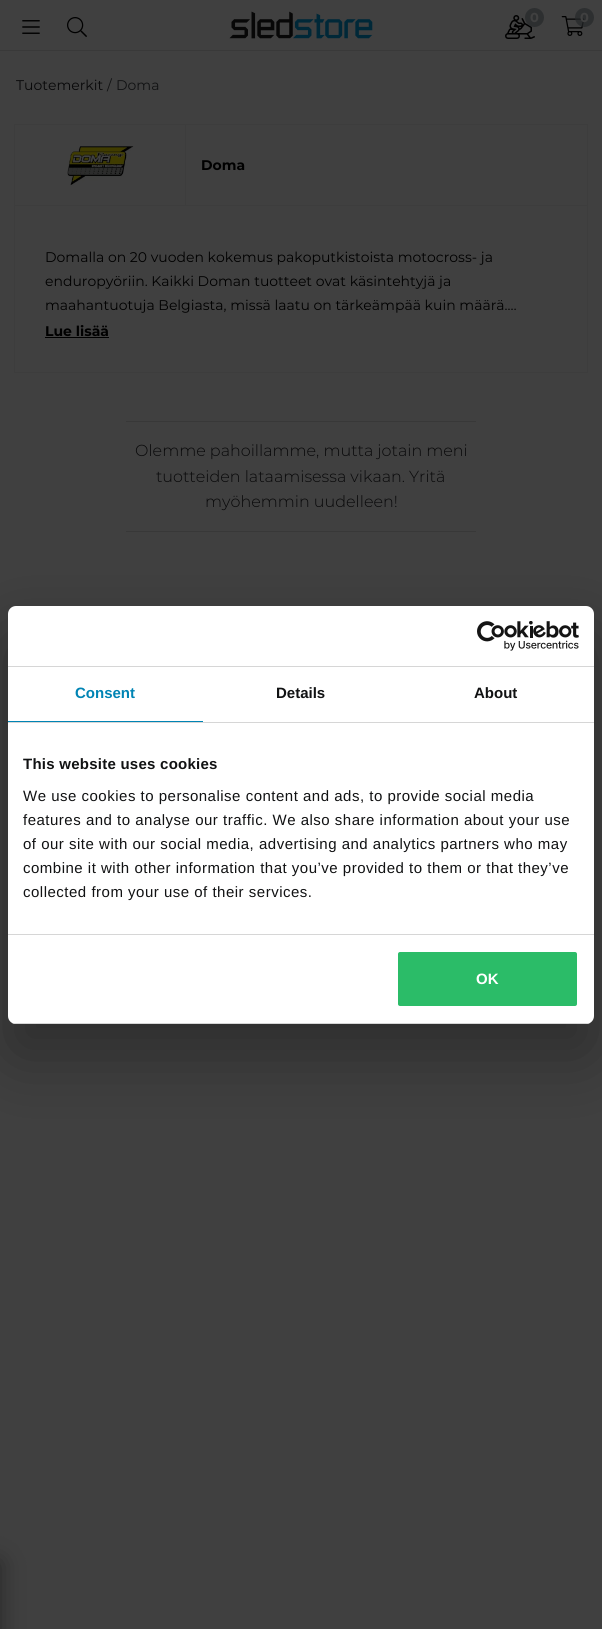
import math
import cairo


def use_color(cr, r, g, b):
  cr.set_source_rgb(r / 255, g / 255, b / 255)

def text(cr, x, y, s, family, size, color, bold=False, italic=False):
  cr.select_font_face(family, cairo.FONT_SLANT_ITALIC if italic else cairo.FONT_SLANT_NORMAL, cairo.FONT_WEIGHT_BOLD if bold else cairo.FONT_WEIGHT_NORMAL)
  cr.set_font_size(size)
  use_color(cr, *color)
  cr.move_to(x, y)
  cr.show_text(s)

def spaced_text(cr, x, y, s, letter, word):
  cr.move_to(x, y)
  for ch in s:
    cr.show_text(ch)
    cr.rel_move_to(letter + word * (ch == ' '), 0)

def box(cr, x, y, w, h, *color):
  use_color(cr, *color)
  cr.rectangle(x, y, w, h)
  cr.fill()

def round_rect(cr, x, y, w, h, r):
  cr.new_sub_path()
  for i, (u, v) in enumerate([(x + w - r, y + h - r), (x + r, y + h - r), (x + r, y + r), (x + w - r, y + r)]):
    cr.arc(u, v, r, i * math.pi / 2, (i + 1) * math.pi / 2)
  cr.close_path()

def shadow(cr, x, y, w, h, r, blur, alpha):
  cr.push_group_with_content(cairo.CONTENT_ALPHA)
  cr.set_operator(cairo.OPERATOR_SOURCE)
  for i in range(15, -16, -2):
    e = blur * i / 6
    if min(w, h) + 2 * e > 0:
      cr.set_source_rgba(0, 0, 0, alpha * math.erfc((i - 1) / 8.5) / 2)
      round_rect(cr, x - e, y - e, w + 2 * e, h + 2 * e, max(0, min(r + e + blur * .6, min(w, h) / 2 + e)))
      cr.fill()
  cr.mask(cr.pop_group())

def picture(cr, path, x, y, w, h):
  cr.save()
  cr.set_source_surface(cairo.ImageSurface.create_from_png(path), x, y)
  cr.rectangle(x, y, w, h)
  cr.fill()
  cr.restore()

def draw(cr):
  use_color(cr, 64, 64, 64)
  cr.paint()
  box(cr, 0, 50, 602, 1, 57, 57, 57)
  picture(cr, "img_01.png", 22, 20, 18, 14)
  picture(cr, "img_02.png", 67, 17, 20, 20)
  picture(cr, "img_03.png", 229, 11, 144, 28)
  picture(cr, "img_04.png", 505, 15, 30, 24)
  cr.set_source_rgba(0.149, 0.157, 0.165, 0.7)
  cr.arc(534.5, 17.5, 9.5, 0, 2 * math.pi)
  cr.fill()
  picture(cr, "img_05.png", 561, 16, 24, 20)
  cr.arc(584.5, 17.5, 9.5, 0, 2 * math.pi)
  cr.fill()
  use_color(cr, 0, 0, 0)
  shadow(cr, -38, 1562, 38, 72, 0, 12.5, 0.4)
  cr.rectangle(14.5, 124.5, 171, 81)
  use_color(cr, 61, 61, 61)
  cr.set_line_width(1)
  cr.stroke()
  picture(cr, "img_06.png", 67, 146, 67, 40)
  box(cr, 186, 124, 402, 1, 61, 61, 61)
  box(cr, 587, 124, 1, 249, 61, 61, 61)
  box(cr, 186, 205, 402, 1, 61, 61, 61)
  box(cr, 14, 372, 574, 1, 61, 61, 61)
  box(cr, 14, 206, 1, 167, 61, 61, 61)
  box(cr, 45, 337, 64, 1, 0, 0, 0)
  box(cr, 126, 421, 350, 1, 56, 56, 56)
  box(cr, 126, 531, 350, 1, 56, 56, 56)
  use_color(cr, 0, 0, 0)
  shadow(cr, 8, 638, 586, 418, 8, 34, 0.3)
  use_color(cr, 255, 255, 255)
  round_rect(cr, 8, 606, 586, 418, 8)
  cr.fill()
  box(cr, 8, 666, 586, 1, 214, 214, 214)
  picture(cr, "img_07.png", 477, 621, 102, 30)
  box(cr, 8, 722, 586, 1, 214, 214, 214)
  box(cr, 8, 721, 195, 1, 0, 132, 180)
  box(cr, 8, 934, 586, 1, 214, 214, 214)
  cr.save()
  round_rect(cr, 8, 606, 586, 418, 8)
  cr.clip()
  box(cr, 8, 1023, 586, 1, 214, 214, 214)
  cr.restore()
  use_color(cr, 43, 188, 104)
  round_rect(cr, 397, 951, 181, 56, 3)
  cr.fill_preserve()
  use_color(cr, 255, 255, 255)
  cr.set_line_width(2)
  cr.stroke()
  text(cr, 530, 22, "0", "Montserrat", 13, (64, 64, 64), bold=True)
  text(cr, 580, 22, "0", "Montserrat", 13, (64, 64, 64), bold=True)
  text(cr, 16, 90, "Tuotemerkit", "Montserrat", 14, (8, 8, 9))
  text(cr, 107, 90, "/", "Montserrat", 14, (17, 18, 19))
  text(cr, 116, 90, "Doma", "Montserrat", 14, (17, 18, 19))
  text(cr, 201, 170, "Doma", "Montserrat", 14, (0, 0, 0), bold=True)
  text(cr, 45, 262, "Domalla on 20 vuoden kokemus pakoputkistoista motocross- ja", "Montserrat", 14, (0, 0, 0))
  text(cr, 45, 286, "enduropyöriin. Kaikki Doman tuotteet ovat käsintehtyjä ja", "Montserrat", 14, (0, 0, 0))
  text(cr, 45, 310, "maahantuotuja Belgiasta, missä laatu on tärkeämpää kuin määrä.…", "Montserrat", 14, (0, 0, 0))
  text(cr, 45, 336, "Lue lisää", "Montserrat", 14, (0, 0, 0), bold=True)
  text(cr, 135, 456, "Olemme pahoillamme, mutta jotain meni", "Montserrat Light", 16, (8, 8, 9))
  text(cr, 156, 482, "tuotteiden lataamisessa vikaan. Yritä", "Montserrat Light", 16, (8, 8, 9))
  text(cr, 205, 507, "myöhemmin uudelleen!", "Montserrat Light", 16, (8, 8, 9))
  text(cr, 75, 698, "Consent", "Liberation Sans", 15, (0, 132, 180), bold=True)
  text(cr, 276, 698, "Details", "Liberation Sans", 15, (17, 18, 19), bold=True)
  text(cr, 474, 698, "About", "Liberation Sans", 15, (17, 18, 19), bold=True)
  spaced_text(cr, 23, 769, "This website uses cookies", 0.25, 0)
  cr.select_font_face("Liberation Sans")
  spaced_text(cr, 23, 801, "We use cookies to personalise content and ads, to provide social media", 0.5, 0)
  spaced_text(cr, 23, 825, "features and to analyse our traffic. We also share information about your use", 0.5, 0)
  spaced_text(cr, 23, 849, "of our site with our social media, advertising and analytics partners who may", 0.5, 0)
  spaced_text(cr, 23, 873, "combine it with other information that you’ve provided to them or that they’ve", 0.5, 0)
  spaced_text(cr, 23, 897, "collected from your use of their services.", 0.5, 0)
  text(cr, 476, 984, "OK", "Liberation Sans", 15, (255, 255, 255), bold=True)


surface = cairo.ImageSurface(cairo.FORMAT_RGB24, 602, 1629)
cr = cairo.Context(surface)
options = cairo.FontOptions()
options.set_hint_metrics(cairo.HINT_METRICS_OFF)
options.set_hint_style(cairo.HINT_STYLE_NONE)
cr.set_font_options(options)
cr.set_miter_limit(4)
draw(cr)
surface.write_to_png("out.png")
